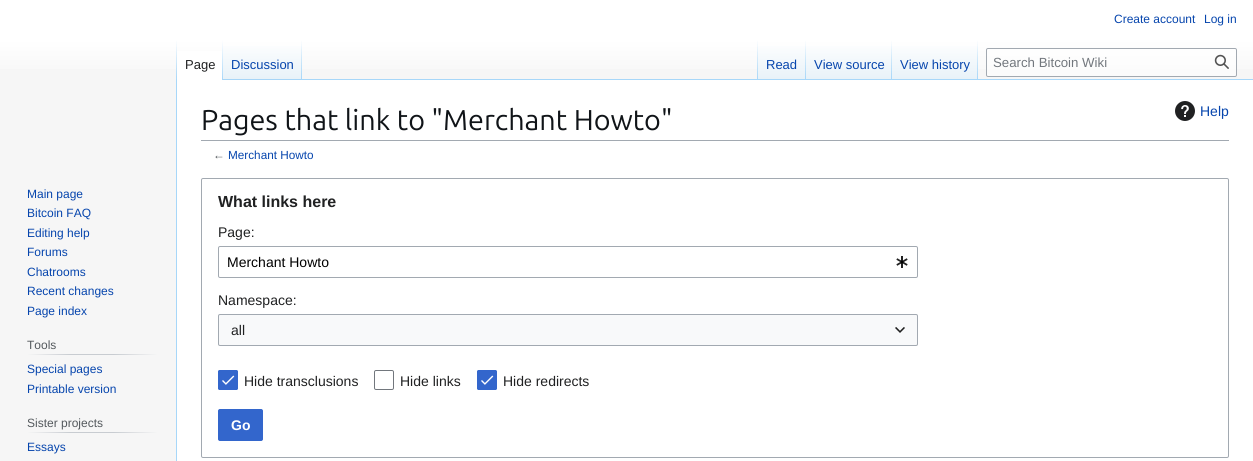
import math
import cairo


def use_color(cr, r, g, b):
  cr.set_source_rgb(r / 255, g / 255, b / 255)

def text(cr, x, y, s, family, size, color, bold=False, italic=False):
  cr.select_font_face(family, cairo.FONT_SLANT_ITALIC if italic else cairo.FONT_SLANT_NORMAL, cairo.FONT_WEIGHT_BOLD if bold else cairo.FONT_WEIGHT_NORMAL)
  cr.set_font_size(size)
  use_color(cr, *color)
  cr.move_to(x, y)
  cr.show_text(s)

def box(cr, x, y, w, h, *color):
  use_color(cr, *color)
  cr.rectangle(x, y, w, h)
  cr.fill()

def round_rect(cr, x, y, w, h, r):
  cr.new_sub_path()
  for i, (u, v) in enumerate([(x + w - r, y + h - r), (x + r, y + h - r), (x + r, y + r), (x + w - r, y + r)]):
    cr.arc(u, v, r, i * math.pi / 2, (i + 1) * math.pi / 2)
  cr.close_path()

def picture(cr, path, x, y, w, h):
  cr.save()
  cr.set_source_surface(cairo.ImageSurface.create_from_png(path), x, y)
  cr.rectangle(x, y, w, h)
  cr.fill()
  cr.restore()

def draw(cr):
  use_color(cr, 246, 246, 246)
  cr.paint()
  gradient = cairo.LinearGradient(627, 0, 627, 80)
  gradient.add_color_stop_rgba(0.5, 1, 1, 1, 1)
  gradient.add_color_stop_rgba(1, 0.965, 0.965, 0.965, 1)
  cr.set_source(gradient)
  cr.rectangle(0, 0, 1253, 69)
  cr.fill()
  box(cr, 176, 79, 1, 382, 167, 215, 249)
  gradient = cairo.LinearGradient(177, 40, 177, 80)
  gradient.add_color_stop_rgba(0, 0.655, 0.843, 0.976, 0)
  gradient.add_color_stop_rgba(1, 0.655, 0.843, 0.976, 1)
  cr.set_source(gradient)
  cr.rectangle(176, 40, 1, 40)
  cr.fill()
  box(cr, 177, 51, 45, 29, 255, 255, 255)
  gradient = cairo.LinearGradient(223, 40, 223, 80)
  gradient.add_color_stop_rgba(0, 1, 1, 1, 1)
  gradient.add_color_stop_rgba(1, 0.655, 0.843, 0.976, 1)
  cr.set_source(gradient)
  cr.rectangle(222, 40, 1, 40)
  cr.fill()
  gradient = cairo.LinearGradient(263, 80, 263, 40)
  gradient.add_color_stop_rgba(0, 0.467, 0.757, 0.965, 1)
  gradient.add_color_stop_rgba(0.03, 0.91, 0.949, 0.973, 1)
  gradient.add_color_stop_rgba(1, 1, 1, 1, 1)
  cr.set_source(gradient)
  cr.rectangle(223, 46, 79, 34)
  cr.fill()
  gradient = cairo.LinearGradient(302, 40, 302, 80)
  gradient.add_color_stop_rgba(0, 0.655, 0.843, 0.976, 0)
  gradient.add_color_stop_rgba(1, 0.655, 0.843, 0.976, 1)
  cr.set_source(gradient)
  cr.rectangle(301, 40, 1, 40)
  cr.fill()
  box(cr, 302, 79, 951, 1, 167, 215, 249)
  gradient = cairo.LinearGradient(758, 40, 758, 80)
  gradient.add_color_stop_rgba(0, 0.655, 0.843, 0.976, 0)
  gradient.add_color_stop_rgba(1, 0.655, 0.843, 0.976, 1)
  cr.set_source(gradient)
  cr.rectangle(757, 40, 1, 40)
  cr.fill()
  gradient = cairo.LinearGradient(782, 80, 782, 40)
  gradient.add_color_stop_rgba(0, 0.467, 0.757, 0.965, 1)
  gradient.add_color_stop_rgba(0.03, 0.91, 0.949, 0.973, 1)
  gradient.add_color_stop_rgba(1, 1, 1, 1, 1)
  cr.set_source(gradient)
  cr.rectangle(758, 46, 48, 33)
  cr.fill()
  gradient = cairo.LinearGradient(806, 40, 806, 80)
  gradient.add_color_stop_rgba(0, 0.655, 0.843, 0.976, 0)
  gradient.add_color_stop_rgba(1, 0.655, 0.843, 0.976, 1)
  cr.set_source(gradient)
  cr.rectangle(805, 40, 1, 40)
  cr.fill()
  gradient = cairo.LinearGradient(849, 80, 849, 40)
  gradient.add_color_stop_rgba(0, 0.467, 0.757, 0.965, 1)
  gradient.add_color_stop_rgba(0.03, 0.91, 0.949, 0.973, 1)
  gradient.add_color_stop_rgba(1, 1, 1, 1, 1)
  cr.set_source(gradient)
  cr.rectangle(806, 46, 86, 33)
  cr.fill()
  gradient = cairo.LinearGradient(892, 40, 892, 80)
  gradient.add_color_stop_rgba(0, 0.655, 0.843, 0.976, 0)
  gradient.add_color_stop_rgba(1, 0.655, 0.843, 0.976, 1)
  cr.set_source(gradient)
  cr.rectangle(891, 40, 1, 40)
  cr.fill()
  gradient = cairo.LinearGradient(935, 80, 935, 40)
  gradient.add_color_stop_rgba(0, 0.467, 0.757, 0.965, 1)
  gradient.add_color_stop_rgba(0.03, 0.91, 0.949, 0.973, 1)
  gradient.add_color_stop_rgba(1, 1, 1, 1, 1)
  cr.set_source(gradient)
  cr.rectangle(892, 46, 86, 33)
  cr.fill()
  gradient = cairo.LinearGradient(978, 40, 978, 80)
  gradient.add_color_stop_rgba(0, 0.655, 0.843, 0.976, 0)
  gradient.add_color_stop_rgba(1, 0.655, 0.843, 0.976, 1)
  cr.set_source(gradient)
  cr.rectangle(977, 40, 1, 40)
  cr.fill()
  cr.set_source_rgba(1, 1, 1, 0.5)
  round_rect(cr, 986.5, 48.5, 250, 28, 1.5)
  cr.fill_preserve()
  use_color(cr, 162, 169, 177)
  cr.set_line_width(1)
  cr.stroke()
  picture(cr, "img_01.png", 1214, 54, 15, 15)
  gradient = cairo.LinearGradient(27, 355, 158, 355)
  gradient.add_color_stop_rgba(0, 0.965, 0.965, 0.965, 1)
  gradient.add_color_stop_rgba(0.33, 0.784, 0.8, 0.82, 1)
  gradient.add_color_stop_rgba(0.66, 0.784, 0.8, 0.82, 1)
  gradient.add_color_stop_rgba(1, 0.965, 0.965, 0.965, 1)
  cr.set_source(gradient)
  cr.rectangle(27, 354, 131, 1)
  cr.fill()
  gradient = cairo.LinearGradient(27, 433, 158, 433)
  gradient.add_color_stop_rgba(0, 0.965, 0.965, 0.965, 1)
  gradient.add_color_stop_rgba(0.33, 0.784, 0.8, 0.82, 1)
  gradient.add_color_stop_rgba(0.66, 0.784, 0.8, 0.82, 1)
  gradient.add_color_stop_rgba(1, 0.965, 0.965, 0.965, 1)
  cr.set_source(gradient)
  cr.rectangle(27, 432, 131, 1)
  cr.fill()
  box(cr, 177, 80, 1076, 381, 255, 255, 255)
  box(cr, 201, 140, 1028, 1, 162, 169, 177)
  picture(cr, "img_02.png", 1175, 101, 20, 20)
  round_rect(cr, 201.5, 178.5, 1027, 279, 1.5)
  cr.stroke()
  round_rect(cr, 218.5, 246.5, 699, 31, 1.5)
  cr.stroke()
  picture(cr, "img_03.png", 896, 256, 12, 12)
  box(cr, 218, 314, 700, 32, 248, 249, 250)
  round_rect(cr, 218.5, 314.5, 699, 31, 1.5)
  use_color(cr, 162, 169, 177)
  cr.stroke()
  picture(cr, "img_04.png", 895, 327, 10, 6)
  use_color(cr, 51, 102, 204)
  round_rect(cr, 218, 370, 20, 20, 2)
  cr.fill()
  picture(cr, "img_05.png", 222, 375, 13, 10)
  round_rect(cr, 218.5, 370.5, 19, 19, 1.5)
  cr.stroke()
  round_rect(cr, 374.5, 370.5, 19, 19, 1.5)
  use_color(cr, 114, 119, 125)
  cr.stroke()
  use_color(cr, 51, 102, 204)
  round_rect(cr, 477, 370, 20, 20, 2)
  cr.fill()
  picture(cr, "img_05.png", 481, 375, 13, 10)
  round_rect(cr, 477.5, 370.5, 19, 19, 1.5)
  cr.stroke()
  round_rect(cr, 218.5, 409.5, 44, 31, 1.5)
  cr.fill_preserve()
  cr.stroke()
  text(cr, 1114, 23, "Create account", "Liberation Sans", 12, (6, 69, 173))
  text(cr, 1204, 23, "Log in", "Liberation Sans", 12, (6, 69, 173))
  text(cr, 185, 69, "Page", "Liberation Sans", 13, (32, 33, 34))
  text(cr, 231, 69, "Discussion", "Liberation Sans", 13, (6, 69, 173))
  text(cr, 766, 69, "Read", "Liberation Sans", 13, (6, 69, 173))
  text(cr, 814, 69, "View source", "Liberation Sans", 13, (6, 69, 173))
  text(cr, 900, 69, "View history", "Liberation Sans", 13, (6, 69, 173))
  text(cr, 993, 67, "Search Bitcoin Wiki", "Liberation Sans", 13.25, (114, 119, 125))
  text(cr, 27, 198, "Main page", "Liberation Sans", 12, (6, 69, 173))
  text(cr, 27, 217, "Bitcoin FAQ", "Liberation Sans", 12, (6, 69, 173))
  text(cr, 27, 237, "Editing help", "Liberation Sans", 12, (6, 69, 173))
  text(cr, 27, 256, "Forums", "Liberation Sans", 12, (6, 69, 173))
  text(cr, 27, 276, "Chatrooms", "Liberation Sans", 12, (6, 69, 173))
  text(cr, 27, 295, "Recent changes", "Liberation Sans", 12, (6, 69, 173))
  text(cr, 27, 315, "Page index", "Liberation Sans", 12, (6, 69, 173))
  text(cr, 27, 349, "Tools", "Liberation Sans", 12, (84, 89, 93))
  text(cr, 27, 373, "Special pages", "Liberation Sans", 12, (6, 69, 173))
  text(cr, 27, 393, "Printable version", "Liberation Sans", 12, (6, 69, 173))
  text(cr, 27, 427, "Sister projects", "Liberation Sans", 12, (84, 89, 93))
  text(cr, 27, 451, "Essays", "Liberation Sans", 12, (6, 69, 173))
  text(cr, 201, 130, "Pages that link to \"Merchant Howto\"", "Ubuntu", 28.75, (16, 20, 24))
  text(cr, 1200, 116, "Help", "Liberation Sans", 14, (6, 69, 173))
  text(cr, 213, 159, "←", "Liberation Sans", 11.75, (84, 89, 93))
  text(cr, 228, 159, "Merchant Howto", "Liberation Sans", 11.75, (6, 69, 173))
  text(cr, 218, 207, "What links here", "Liberation Sans", 16, (32, 33, 34), bold=True)
  text(cr, 218, 237, "Page:", "Liberation Sans", 14, (32, 33, 34))
  text(cr, 227, 267, "Merchant Howto", "Liberation Sans", 14, (0, 0, 0))
  text(cr, 218, 305, "Namespace:", "Liberation Sans", 14, (32, 33, 34))
  text(cr, 231, 335, "all", "Liberation Sans", 14, (32, 33, 34))
  text(cr, 244, 386, "Hide transclusions", "Liberation Sans", 14, (32, 33, 34))
  text(cr, 400, 386, "Hide links", "Liberation Sans", 14, (32, 33, 34))
  text(cr, 503, 386, "Hide redirects", "Liberation Sans", 14, (32, 33, 34))
  text(cr, 231, 430, "Go", "Liberation Sans", 14, (255, 255, 255), bold=True)


surface = cairo.ImageSurface(cairo.FORMAT_RGB24, 1253, 461)
cr = cairo.Context(surface)
options = cairo.FontOptions()
options.set_hint_metrics(cairo.HINT_METRICS_OFF)
options.set_hint_style(cairo.HINT_STYLE_NONE)
cr.set_font_options(options)
cr.set_miter_limit(4)
draw(cr)
surface.write_to_png("out.png")
